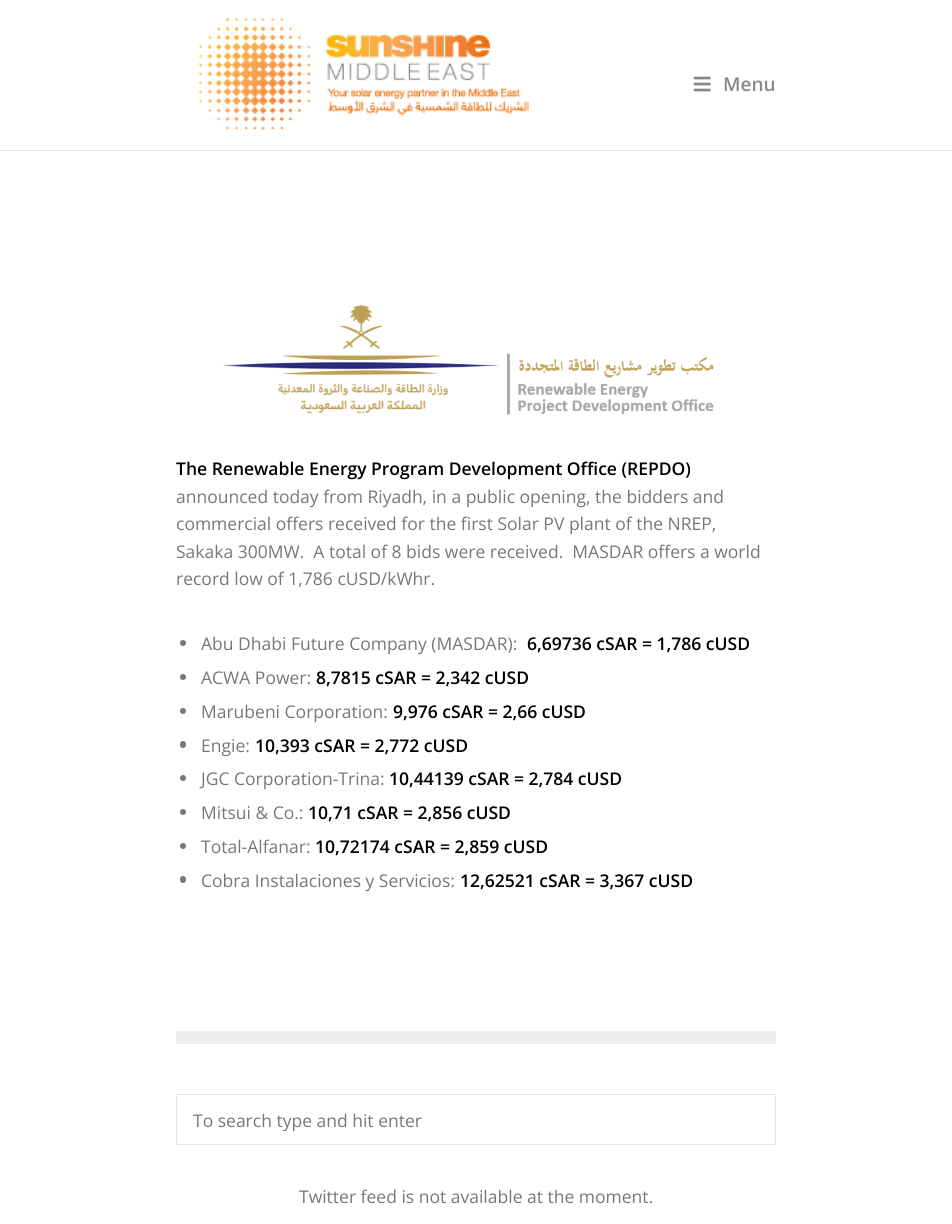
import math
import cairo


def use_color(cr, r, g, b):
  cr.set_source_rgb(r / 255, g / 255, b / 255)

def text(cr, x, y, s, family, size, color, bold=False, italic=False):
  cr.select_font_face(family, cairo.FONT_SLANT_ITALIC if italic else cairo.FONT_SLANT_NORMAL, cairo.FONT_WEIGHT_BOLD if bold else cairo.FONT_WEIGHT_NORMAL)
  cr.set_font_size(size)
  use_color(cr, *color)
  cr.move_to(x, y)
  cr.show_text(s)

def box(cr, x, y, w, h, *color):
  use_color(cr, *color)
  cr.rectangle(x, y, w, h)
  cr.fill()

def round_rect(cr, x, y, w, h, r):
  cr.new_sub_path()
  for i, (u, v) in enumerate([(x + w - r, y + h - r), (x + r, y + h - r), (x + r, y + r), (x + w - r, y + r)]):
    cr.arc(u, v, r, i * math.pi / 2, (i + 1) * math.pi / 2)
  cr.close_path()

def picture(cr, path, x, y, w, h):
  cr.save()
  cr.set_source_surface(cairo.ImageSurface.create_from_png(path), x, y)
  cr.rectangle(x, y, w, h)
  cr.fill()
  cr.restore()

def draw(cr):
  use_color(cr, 255, 255, 255)
  cr.paint()
  box(cr, 0, 150, 952, 1, 228, 228, 228)
  picture(cr, "img_01.png", 198, 17, 331, 114)
  picture(cr, "img_02.png", 693, 76, 18, 16)
  picture(cr, "img_03.png", 223, 305, 491, 110)
  use_color(cr, 119, 119, 119)
  cr.arc(183, 643, 3, 0, 2 * math.pi)
  cr.fill()
  cr.arc(183, 677, 3, 0, 2 * math.pi)
  cr.fill()
  cr.arc(183, 711, 3, 0, 2 * math.pi)
  cr.fill()
  round_rect(cr, 180, 741, 6, 7, 3)
  cr.fill()
  cr.arc(183, 778, 3, 0, 2 * math.pi)
  cr.fill()
  cr.arc(183, 812, 3, 0, 2 * math.pi)
  cr.fill()
  cr.arc(183, 846, 3, 0, 2 * math.pi)
  cr.fill()
  round_rect(cr, 180, 876, 6, 7, 3)
  cr.fill()
  box(cr, 176, 1031, 600, 13, 238, 238, 238)
  cr.rectangle(176.5, 1094.5, 599, 50)
  use_color(cr, 230, 230, 230)
  cr.set_line_width(1)
  cr.stroke()
  text(cr, 723, 91, "Menu", "Open Sans SemiBold", 19, (136, 136, 136))
  text(cr, 176, 475, "The Renewable Energy Program Development Office (REPDO)", "Open Sans SemiBold", 17.5, (0, 0, 0))
  text(cr, 176, 503, "announced today from Riyadh, in a public opening, the bidders and", "Open Sans", 17.5, (119, 119, 119))
  text(cr, 176, 530, "commercial offers received for the first Solar PV plant of the NREP,", "Open Sans", 17.5, (119, 119, 119))
  text(cr, 176, 558, "Sakaka 300MW.  A total of 8 bids were received.  MASDAR offers a world", "Open Sans", 17.5, (119, 119, 119))
  text(cr, 176, 585, "record low of 1,786 cUSD/kWhr.", "Open Sans", 17.5, (119, 119, 119))
  text(cr, 201, 650, "Abu Dhabi Future Company (MASDAR):", "Open Sans", 17.5, (119, 119, 119))
  text(cr, 527, 650, "6,69736 cSAR = 1,786 cUSD", "Open Sans SemiBold", 17.5, (0, 0, 0))
  text(cr, 201, 684, "ACWA Power:", "Open Sans", 17.5, (119, 119, 119))
  text(cr, 316, 684, "8,7815 cSAR = 2,342 cUSD", "Open Sans SemiBold", 17.5, (0, 0, 0))
  text(cr, 201, 718, "Marubeni Corporation:", "Open Sans", 17.5, (119, 119, 119))
  text(cr, 393, 718, "9,976 cSAR = 2,66 cUSD", "Open Sans SemiBold", 17.5, (0, 0, 0))
  text(cr, 201, 752, "Engie:", "Open Sans", 17.5, (119, 119, 119))
  text(cr, 255, 752, "10,393 cSAR = 2,772 cUSD", "Open Sans SemiBold", 17.5, (0, 0, 0))
  text(cr, 201, 785, "JGC Corporation-Trina:", "Open Sans", 17.5, (119, 119, 119))
  text(cr, 389, 785, "10,44139 cSAR = 2,784 cUSD", "Open Sans SemiBold", 17.5, (0, 0, 0))
  text(cr, 201, 819, "Mitsui & Co.:", "Open Sans", 17.5, (119, 119, 119))
  text(cr, 308, 819, "10,71 cSAR = 2,856 cUSD", "Open Sans SemiBold", 17.5, (0, 0, 0))
  text(cr, 201, 853, "Total-Alfanar:", "Open Sans", 17.5, (119, 119, 119))
  text(cr, 315, 853, "10,72174 cSAR = 2,859 cUSD", "Open Sans SemiBold", 17.5, (0, 0, 0))
  text(cr, 201, 887, "Cobra Instalaciones y Servicios:", "Open Sans", 17.5, (119, 119, 119))
  text(cr, 460, 887, "12,62521 cSAR = 3,367 cUSD", "Open Sans SemiBold", 17.5, (0, 0, 0))
  cr.save()
  cr.rectangle(193, 1108, 562, 23)
  cr.clip()
  text(cr, 193, 1127, "To search type and hit enter", "Open Sans", 17.5, (119, 119, 119))
  cr.restore()
  text(cr, 299, 1203, "Twitter feed is not available at the moment.", "Open Sans", 17.5, (119, 119, 119))


surface = cairo.ImageSurface(cairo.FORMAT_RGB24, 952, 1224)
cr = cairo.Context(surface)
options = cairo.FontOptions()
options.set_hint_metrics(cairo.HINT_METRICS_OFF)
options.set_hint_style(cairo.HINT_STYLE_NONE)
cr.set_font_options(options)
cr.set_miter_limit(4)
draw(cr)
surface.write_to_png("out.png")
